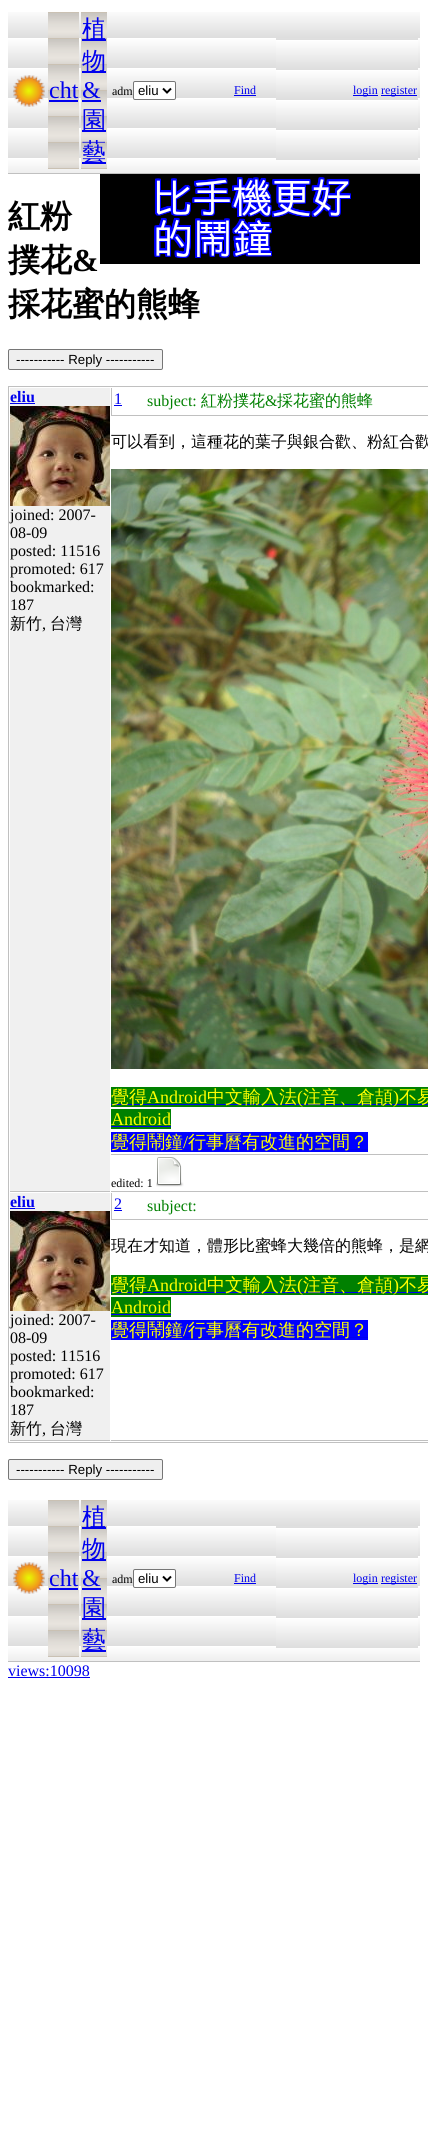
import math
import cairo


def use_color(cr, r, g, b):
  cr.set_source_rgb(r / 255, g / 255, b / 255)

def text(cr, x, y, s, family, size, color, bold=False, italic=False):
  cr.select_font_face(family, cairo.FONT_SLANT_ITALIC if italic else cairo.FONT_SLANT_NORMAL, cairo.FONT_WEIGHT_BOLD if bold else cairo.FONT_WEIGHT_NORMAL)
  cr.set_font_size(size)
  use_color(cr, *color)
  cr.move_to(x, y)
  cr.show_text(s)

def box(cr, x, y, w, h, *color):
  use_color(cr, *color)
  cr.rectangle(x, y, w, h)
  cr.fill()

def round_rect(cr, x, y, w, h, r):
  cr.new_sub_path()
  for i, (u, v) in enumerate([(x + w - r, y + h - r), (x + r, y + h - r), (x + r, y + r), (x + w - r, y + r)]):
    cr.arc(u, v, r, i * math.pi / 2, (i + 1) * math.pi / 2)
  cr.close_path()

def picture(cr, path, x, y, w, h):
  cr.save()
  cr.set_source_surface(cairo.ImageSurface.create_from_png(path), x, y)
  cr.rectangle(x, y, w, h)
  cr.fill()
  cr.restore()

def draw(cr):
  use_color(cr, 255, 255, 255)
  cr.paint()
  picture(cr, "img_01.png", 8, 12, 412, 161)
  box(cr, 8, 173, 412, 1, 192, 192, 192)
  picture(cr, "img_02.png", 13, 75, 32, 32)
  picture(cr, "img_03.png", 48, 12, 31, 157)
  box(cr, 49, 100, 29, 2, 0, 0, 238)
  picture(cr, "img_04.png", 81, 12, 26, 157)
  box(cr, 82, 39, 24, 2, 0, 0, 238)
  box(cr, 82, 71, 24, 2, 0, 0, 238)
  box(cr, 82, 100, 19, 2, 0, 0, 238)
  box(cr, 82, 130, 24, 2, 0, 0, 238)
  box(cr, 82, 162, 24, 2, 0, 0, 238)
  use_color(cr, 255, 255, 255)
  round_rect(cr, 133.5, 81.5, 42, 18, 1.5)
  cr.fill_preserve()
  use_color(cr, 118, 118, 118)
  cr.set_line_width(1)
  cr.stroke()
  cr.new_path()
  cr.move_to(163, 88.5)
  cr.line_to(167, 92.5)
  cr.line_to(171, 88.5)
  use_color(cr, 0, 0, 0)
  cr.set_line_width(2)
  cr.stroke()
  box(cr, 234, 95, 22, 1, 0, 0, 238)
  picture(cr, "img_05.png", 276, 38, 142, 122)
  box(cr, 353, 95, 25, 1, 0, 0, 238)
  box(cr, 381, 95, 36, 1, 0, 0, 238)
  picture(cr, "img_06.png", 100, 174, 320, 90)
  use_color(cr, 239, 239, 239)
  round_rect(cr, 8.5, 349.5, 154, 20, 1.5)
  cr.fill_preserve()
  use_color(cr, 118, 118, 118)
  cr.set_line_width(1)
  cr.stroke()
  cr.rectangle(8.5, 386.5, 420, 1056)
  use_color(cr, 192, 192, 192)
  cr.stroke()
  box(cr, 10, 388, 100, 803, 240, 240, 240)
  box(cr, 10, 1191, 100, 1, 192, 192, 192)
  box(cr, 10, 403, 25, 1, 0, 0, 238)
  picture(cr, "img_07.png", 10, 406, 100, 100)
  box(cr, 111, 1191, 317, 1, 192, 192, 192)
  box(cr, 111, 415, 317, 1, 192, 192, 192)
  box(cr, 111, 388, 1, 28, 192, 192, 192)
  box(cr, 114, 405, 8, 1, 0, 0, 238)
  picture(cr, "img_08.png", 111, 469, 317, 600)
  box(cr, 111, 1087, 317, 20, 0, 128, 0)
  box(cr, 111, 1104, 317, 1, 0, 0, 238)
  box(cr, 111, 1109, 60, 20, 0, 128, 0)
  box(cr, 111, 1126, 60, 1, 0, 0, 238)
  box(cr, 111, 1132, 257, 20, 0, 0, 255)
  box(cr, 111, 1149, 257, 1, 0, 0, 238)
  box(cr, 111, 1154, 317, 1, 192, 192, 192)
  picture(cr, "img_09.png", 156, 1157, 28, 30)
  box(cr, 10, 1193, 100, 247, 240, 240, 240)
  box(cr, 10, 1440, 100, 1, 192, 192, 192)
  box(cr, 10, 1208, 25, 1, 0, 0, 238)
  picture(cr, "img_07.png", 10, 1211, 100, 100)
  box(cr, 111, 1440, 317, 1, 192, 192, 192)
  box(cr, 111, 1219, 317, 1, 192, 192, 192)
  box(cr, 111, 1193, 1, 27, 192, 192, 192)
  box(cr, 114, 1210, 8, 1, 0, 0, 238)
  box(cr, 111, 1275, 317, 20, 0, 128, 0)
  box(cr, 111, 1292, 317, 1, 0, 0, 238)
  box(cr, 111, 1297, 60, 20, 0, 128, 0)
  box(cr, 111, 1314, 60, 1, 0, 0, 238)
  box(cr, 111, 1320, 257, 20, 0, 0, 255)
  box(cr, 111, 1337, 257, 1, 0, 0, 238)
  use_color(cr, 239, 239, 239)
  round_rect(cr, 8.5, 1459.5, 154, 20, 1.5)
  cr.fill_preserve()
  use_color(cr, 118, 118, 118)
  cr.stroke()
  picture(cr, "img_01.png", 8, 1500, 412, 161)
  box(cr, 8, 1661, 412, 1, 192, 192, 192)
  picture(cr, "img_10.png", 13, 1562, 32, 32)
  picture(cr, "img_03.png", 48, 1500, 31, 157)
  box(cr, 49, 1588, 29, 2, 0, 0, 238)
  picture(cr, "img_04.png", 81, 1500, 26, 157)
  box(cr, 82, 1527, 24, 2, 0, 0, 238)
  box(cr, 82, 1559, 24, 2, 0, 0, 238)
  box(cr, 82, 1588, 19, 2, 0, 0, 238)
  box(cr, 82, 1618, 24, 2, 0, 0, 238)
  box(cr, 82, 1650, 24, 2, 0, 0, 238)
  use_color(cr, 255, 255, 255)
  round_rect(cr, 133.5, 1569.5, 42, 18, 1.5)
  cr.fill_preserve()
  use_color(cr, 118, 118, 118)
  cr.stroke()
  cr.new_path()
  cr.move_to(163, 1576.5)
  cr.line_to(167, 1580.5)
  cr.line_to(171, 1576.5)
  use_color(cr, 0, 0, 0)
  cr.set_line_width(2)
  cr.stroke()
  box(cr, 234, 1583, 22, 1, 0, 0, 238)
  picture(cr, "img_05.png", 276, 1526, 142, 122)
  box(cr, 353, 1583, 25, 1, 0, 0, 238)
  box(cr, 381, 1583, 36, 1, 0, 0, 238)
  box(cr, 8, 1677, 82, 1, 0, 0, 238)
  text(cr, 49, 98, "cht", "Liberation Serif", 24, (0, 0, 238))
  text(cr, 82, 37, "植", "WenQuanYi Zen Hei Medium", 24, (0, 0, 238))
  text(cr, 82, 69, "物", "WenQuanYi Zen Hei Medium", 24, (0, 0, 238))
  text(cr, 82, 98, "&", "Liberation Serif", 24, (0, 0, 238))
  text(cr, 82, 128, "園", "WenQuanYi Zen Hei Medium", 24, (0, 0, 238))
  text(cr, 82, 160, "藝", "WenQuanYi Zen Hei Medium", 24, (0, 0, 238))
  text(cr, 112, 95, "adm", "Liberation Serif", 12, (0, 0, 0))
  text(cr, 138, 95, "eliu", "Liberation Sans", 13.25, (0, 0, 0))
  text(cr, 234, 94, "Find", "Liberation Serif", 12, (0, 0, 238))
  text(cr, 353, 94, "login", "Liberation Serif", 12, (0, 0, 238))
  text(cr, 381, 94, "register", "Liberation Serif", 12, (0, 0, 238))
  text(cr, 8, 227, "紅粉", "WenQuanYi Zen Hei", 32, (0, 0, 0), bold=True)
  text(cr, 8, 271, "撲花", "WenQuanYi Zen Hei", 32, (0, 0, 0), bold=True)
  text(cr, 72, 271, "&", "Liberation Serif", 32, (0, 0, 0), bold=True)
  text(cr, 8, 315, "採花蜜的熊蜂", "WenQuanYi Zen Hei", 32, (0, 0, 0), bold=True)
  text(cr, 16, 364, "----------- Reply -----------", "Liberation Sans", 13.25, (0, 0, 0))
  text(cr, 10, 402, "eliu", "Liberation Serif", 16, (0, 0, 238), bold=True)
  text(cr, 10, 520, "joined: 2007-", "Liberation Serif", 16, (0, 0, 0))
  text(cr, 10, 538, "08-09", "Liberation Serif", 16, (0, 0, 0))
  text(cr, 10, 556, "posted: 11516", "Liberation Serif", 16, (0, 0, 0))
  text(cr, 10, 574, "promoted: 617", "Liberation Serif", 16, (0, 0, 0))
  text(cr, 10, 592, "bookmarked:", "Liberation Serif", 16, (0, 0, 0))
  text(cr, 10, 610, "187", "Liberation Serif", 16, (0, 0, 0))
  text(cr, 10, 629, "新竹", "WenQuanYi Zen Hei Medium", 16, (0, 0, 0))
  text(cr, 42, 629, ",", "Liberation Serif", 16, (0, 0, 0))
  text(cr, 50, 629, "台灣", "WenQuanYi Zen Hei Medium", 16, (0, 0, 0))
  text(cr, 114, 404, "1", "Liberation Serif", 16, (0, 0, 238))
  text(cr, 147, 406, "subject:", "Liberation Serif", 16, (0, 128, 0))
  text(cr, 201, 406, "紅粉撲花", "WenQuanYi Zen Hei Medium", 16, (0, 128, 0))
  text(cr, 265, 406, "&", "Liberation Serif", 16, (0, 128, 0))
  text(cr, 277, 406, "採花蜜的熊蜂", "WenQuanYi Zen Hei Medium", 16, (0, 128, 0))
  text(cr, 111, 447, "可以看到，這種花的葉子與銀合歡、粉紅合歡", "WenQuanYi Zen Hei Medium", 16, (0, 0, 0))
  text(cr, 111, 1103, "覺得", "WenQuanYi Zen Hei Medium", 18, (255, 255, 0))
  text(cr, 147, 1103, "Android", "Liberation Serif", 18, (255, 255, 0))
  text(cr, 207, 1103, "中文輸入法", "WenQuanYi Zen Hei Medium", 18, (255, 255, 0))
  text(cr, 297, 1103, "(", "Liberation Serif", 18, (255, 255, 0))
  text(cr, 303, 1103, "注音、倉頡", "WenQuanYi Zen Hei Medium", 18, (255, 255, 0))
  text(cr, 393, 1103, ")", "Liberation Serif", 18, (255, 255, 0))
  text(cr, 399, 1103, "不易", "WenQuanYi Zen Hei Medium", 18, (255, 255, 0))
  text(cr, 111, 1125, "Android", "Liberation Serif", 18, (255, 255, 0))
  text(cr, 111, 1148, "覺得鬧鐘", "WenQuanYi Zen Hei Medium", 18, (255, 255, 0))
  text(cr, 183, 1148, "/", "Liberation Serif", 18, (255, 255, 0))
  text(cr, 188, 1148, "行事曆有改進的空間？", "WenQuanYi Zen Hei Medium", 18, (255, 255, 0))
  text(cr, 111, 1187, "edited: 1", "Liberation Serif", 12, (0, 0, 0))
  text(cr, 10, 1207, "eliu", "Liberation Serif", 16, (0, 0, 238), bold=True)
  text(cr, 10, 1325, "joined: 2007-", "Liberation Serif", 16, (0, 0, 0))
  text(cr, 10, 1343, "08-09", "Liberation Serif", 16, (0, 0, 0))
  text(cr, 10, 1361, "posted: 11516", "Liberation Serif", 16, (0, 0, 0))
  text(cr, 10, 1379, "promoted: 617", "Liberation Serif", 16, (0, 0, 0))
  text(cr, 10, 1397, "bookmarked:", "Liberation Serif", 16, (0, 0, 0))
  text(cr, 10, 1415, "187", "Liberation Serif", 16, (0, 0, 0))
  text(cr, 10, 1434, "新竹", "WenQuanYi Zen Hei Medium", 16, (0, 0, 0))
  text(cr, 42, 1434, ",", "Liberation Serif", 16, (0, 0, 0))
  text(cr, 50, 1434, "台灣", "WenQuanYi Zen Hei Medium", 16, (0, 0, 0))
  text(cr, 114, 1209, "2", "Liberation Serif", 16, (0, 0, 238))
  text(cr, 147, 1211, "subject:", "Liberation Serif", 16, (0, 128, 0))
  text(cr, 111, 1251, "現在才知道，體形比蜜蜂大幾倍的熊蜂，是網", "WenQuanYi Zen Hei Medium", 16, (0, 0, 0))
  text(cr, 111, 1291, "覺得", "WenQuanYi Zen Hei Medium", 18, (255, 255, 0))
  text(cr, 147, 1291, "Android", "Liberation Serif", 18, (255, 255, 0))
  text(cr, 207, 1291, "中文輸入法", "WenQuanYi Zen Hei Medium", 18, (255, 255, 0))
  text(cr, 297, 1291, "(", "Liberation Serif", 18, (255, 255, 0))
  text(cr, 303, 1291, "注音、倉頡", "WenQuanYi Zen Hei Medium", 18, (255, 255, 0))
  text(cr, 393, 1291, ")", "Liberation Serif", 18, (255, 255, 0))
  text(cr, 399, 1291, "不易", "WenQuanYi Zen Hei Medium", 18, (255, 255, 0))
  text(cr, 111, 1313, "Android", "Liberation Serif", 18, (255, 255, 0))
  text(cr, 111, 1336, "覺得鬧鐘", "WenQuanYi Zen Hei Medium", 18, (255, 255, 0))
  text(cr, 183, 1336, "/", "Liberation Serif", 18, (255, 255, 0))
  text(cr, 188, 1336, "行事曆有改進的空間？", "WenQuanYi Zen Hei Medium", 18, (255, 255, 0))
  text(cr, 16, 1474, "----------- Reply -----------", "Liberation Sans", 13.25, (0, 0, 0))
  text(cr, 49, 1586, "cht", "Liberation Serif", 24, (0, 0, 238))
  text(cr, 82, 1525, "植", "WenQuanYi Zen Hei Medium", 24, (0, 0, 238))
  text(cr, 82, 1557, "物", "WenQuanYi Zen Hei Medium", 24, (0, 0, 238))
  text(cr, 82, 1586, "&", "Liberation Serif", 24, (0, 0, 238))
  text(cr, 82, 1616, "園", "WenQuanYi Zen Hei Medium", 24, (0, 0, 238))
  text(cr, 82, 1648, "藝", "WenQuanYi Zen Hei Medium", 24, (0, 0, 238))
  text(cr, 112, 1583, "adm", "Liberation Serif", 12, (0, 0, 0))
  text(cr, 138, 1583, "eliu", "Liberation Sans", 13.25, (0, 0, 0))
  text(cr, 234, 1582, "Find", "Liberation Serif", 12, (0, 0, 238))
  text(cr, 353, 1582, "login", "Liberation Serif", 12, (0, 0, 238))
  text(cr, 381, 1582, "register", "Liberation Serif", 12, (0, 0, 238))
  text(cr, 8, 1676, "views:10098", "Liberation Serif", 16, (0, 0, 238))


surface = cairo.ImageSurface(cairo.FORMAT_RGB24, 428, 2153)
cr = cairo.Context(surface)
options = cairo.FontOptions()
options.set_hint_metrics(cairo.HINT_METRICS_OFF)
options.set_hint_style(cairo.HINT_STYLE_NONE)
cr.set_font_options(options)
cr.set_miter_limit(4)
draw(cr)
surface.write_to_png("out.png")
